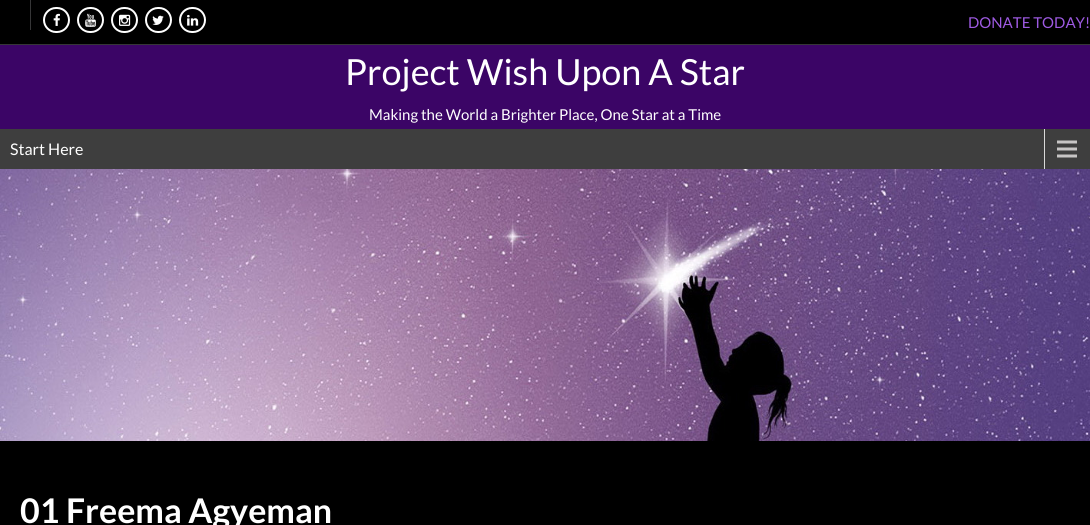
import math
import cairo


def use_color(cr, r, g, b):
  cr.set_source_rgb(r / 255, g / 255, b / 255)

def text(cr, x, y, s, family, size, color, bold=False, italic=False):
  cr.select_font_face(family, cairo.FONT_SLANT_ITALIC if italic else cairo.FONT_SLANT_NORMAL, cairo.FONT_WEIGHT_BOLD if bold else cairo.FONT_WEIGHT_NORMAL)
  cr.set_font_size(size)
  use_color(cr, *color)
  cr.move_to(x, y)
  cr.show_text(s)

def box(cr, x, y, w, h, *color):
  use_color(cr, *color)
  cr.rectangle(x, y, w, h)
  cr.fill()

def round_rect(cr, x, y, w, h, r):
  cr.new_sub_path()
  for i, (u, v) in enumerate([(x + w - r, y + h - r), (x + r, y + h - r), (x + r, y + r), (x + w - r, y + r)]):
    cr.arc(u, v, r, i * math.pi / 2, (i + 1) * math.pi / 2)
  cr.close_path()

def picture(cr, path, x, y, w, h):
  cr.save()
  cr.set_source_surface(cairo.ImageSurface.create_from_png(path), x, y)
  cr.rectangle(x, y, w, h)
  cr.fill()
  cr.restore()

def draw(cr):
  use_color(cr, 0, 0, 0)
  cr.paint()
  box(cr, 0, 45, 1090, 84, 59, 5, 102)
  box(cr, 0, 44, 1090, 1, 54, 54, 55)
  box(cr, 30, 0, 1, 30, 54, 54, 55)
  round_rect(cr, 44, 8, 25, 24, 12)
  use_color(cr, 255, 255, 255)
  cr.stroke()
  picture(cr, "img_01.png", 53, 13, 7, 13)
  round_rect(cr, 78, 8, 25, 24, 12)
  cr.stroke()
  picture(cr, "img_02.png", 85, 13, 11, 14)
  round_rect(cr, 112, 8, 25, 24, 12)
  cr.stroke()
  picture(cr, "img_03.png", 119, 14, 12, 12)
  round_rect(cr, 146, 8, 25, 24, 12)
  cr.stroke()
  picture(cr, "img_04.png", 152, 15, 12, 10)
  round_rect(cr, 180, 8, 25, 24, 12)
  cr.stroke()
  picture(cr, "img_05.png", 187, 14, 12, 12)
  box(cr, 0, 129, 1090, 40, 62, 62, 62)
  picture(cr, "img_06.png", 1044, 129, 33, 40)
  picture(cr, "img_07.png", 0, 169, 1090, 272)
  text(cr, 968, 28, "DONATE TODAY!", "Lato", 15, (158, 90, 226))
  text(cr, 345, 85, "Project Wish Upon A Star", "Lato", 36, (255, 255, 255))
  text(cr, 369, 120, "Making the World a Brighter Place, One Star at a Time", "Lato", 15, (255, 255, 255))
  text(cr, 10, 155, "Start Here", "Lato", 16, (255, 255, 255))
  text(cr, 20, 523, "01 Freema Agyeman", "Lato", 34, (255, 255, 255), bold=True)


surface = cairo.ImageSurface(cairo.FORMAT_RGB24, 1090, 525)
cr = cairo.Context(surface)
options = cairo.FontOptions()
options.set_hint_metrics(cairo.HINT_METRICS_OFF)
options.set_hint_style(cairo.HINT_STYLE_NONE)
cr.set_font_options(options)
cr.set_miter_limit(4)
draw(cr)
surface.write_to_png("out.png")
